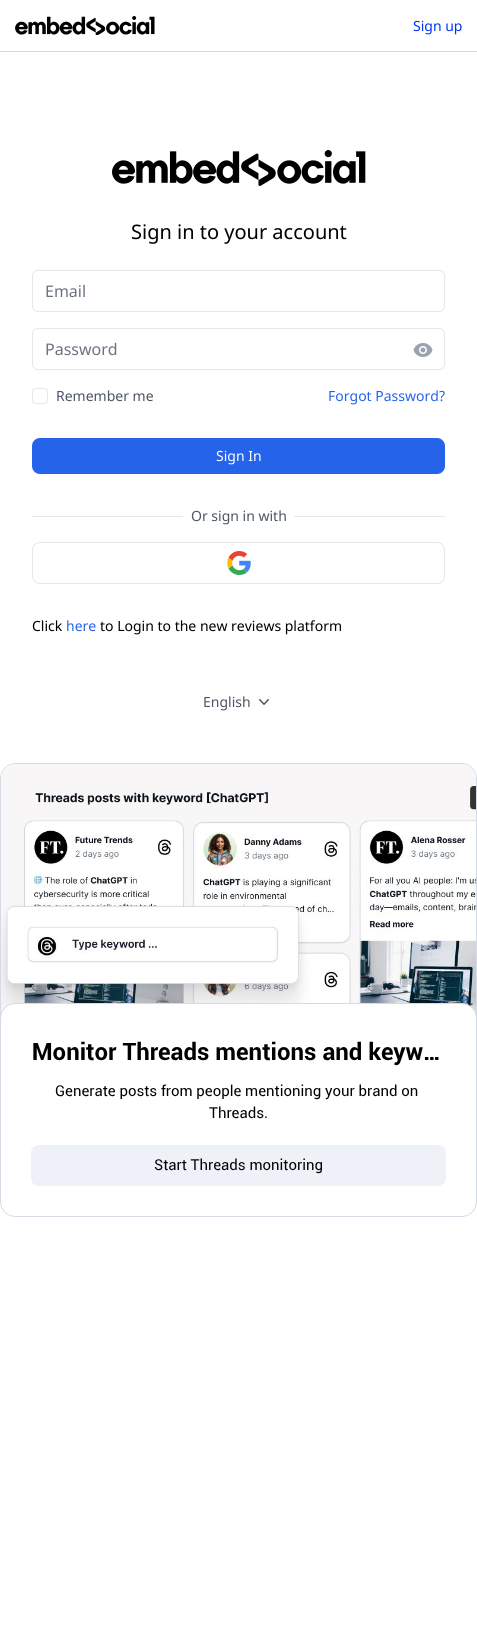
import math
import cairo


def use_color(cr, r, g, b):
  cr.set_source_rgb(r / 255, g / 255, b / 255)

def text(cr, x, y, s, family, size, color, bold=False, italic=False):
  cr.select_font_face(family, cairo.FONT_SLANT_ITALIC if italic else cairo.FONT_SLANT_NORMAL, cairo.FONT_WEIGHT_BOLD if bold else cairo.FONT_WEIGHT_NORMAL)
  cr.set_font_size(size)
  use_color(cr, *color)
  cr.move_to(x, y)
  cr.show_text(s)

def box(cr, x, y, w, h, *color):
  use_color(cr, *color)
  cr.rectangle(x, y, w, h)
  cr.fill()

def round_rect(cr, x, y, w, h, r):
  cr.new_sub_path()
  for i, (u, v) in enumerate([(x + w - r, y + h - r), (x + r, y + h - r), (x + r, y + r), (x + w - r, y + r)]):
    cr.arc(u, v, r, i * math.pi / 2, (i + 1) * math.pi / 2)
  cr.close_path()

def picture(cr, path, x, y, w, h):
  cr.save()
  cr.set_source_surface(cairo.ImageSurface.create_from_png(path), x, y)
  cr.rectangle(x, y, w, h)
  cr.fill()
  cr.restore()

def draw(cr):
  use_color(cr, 255, 255, 255)
  cr.paint()
  box(cr, 0, 51, 477, 1, 214, 218, 228)
  picture(cr, "img_01.png", 15, 16, 140, 19)
  picture(cr, "img_02.png", 112, 150, 254, 36)
  round_rect(cr, 32.5, 270.5, 412, 41, 5.5)
  use_color(cr, 229, 231, 235)
  cr.set_line_width(1)
  cr.stroke()
  round_rect(cr, 32.5, 328.5, 412, 41, 5.5)
  cr.stroke()
  picture(cr, "img_03.png", 413, 343, 20, 14)
  round_rect(cr, 32.5, 388.5, 15, 15, 3.5)
  cr.stroke()
  use_color(cr, 37, 99, 235)
  round_rect(cr, 32, 438, 413, 36, 8)
  cr.fill()
  box(cr, 32, 516, 151, 1, 229, 231, 235)
  box(cr, 294, 516, 151, 1, 229, 231, 235)
  round_rect(cr, 32.5, 542.5, 412, 41, 7.5)
  cr.stroke()
  picture(cr, "img_04.png", 227, 551, 24, 24)
  picture(cr, "img_05.png", 259, 699, 10, 6)
  picture(cr, "img_06.png", 0, 763, 477, 454)
  text(cr, 413, 31, "Sign up", "Noto Sans", 14, (0, 51, 255))
  text(cr, 131, 239, "Sign in to your account", "Noto Sans", 20, (0, 0, 0))
  text(cr, 45, 297, "Email", "Noto Sans", 16, (107, 114, 128))
  text(cr, 45, 355, "Password", "Noto Sans", 16, (107, 114, 128))
  text(cr, 56, 401, "Remember me", "Noto Sans", 14, (75, 85, 99))
  text(cr, 328, 401, "Forgot Password?", "Noto Sans", 14, (37, 99, 235))
  text(cr, 216, 461, "Sign In", "Noto Sans", 14, (255, 255, 255))
  text(cr, 191, 521, "Or sign in with", "Noto Sans", 14, (75, 85, 99))
  text(cr, 32, 631, "Click", "Noto Sans", 14, (0, 0, 0))
  text(cr, 66, 631, "here", "Noto Sans", 14, (37, 99, 235))
  text(cr, 100, 631, "to Login to the new reviews platform", "Noto Sans", 14, (0, 0, 0))
  text(cr, 203, 707, "English", "Noto Sans", 14, (75, 85, 99))


surface = cairo.ImageSurface(cairo.FORMAT_RGB24, 477, 1647)
cr = cairo.Context(surface)
options = cairo.FontOptions()
options.set_hint_metrics(cairo.HINT_METRICS_OFF)
options.set_hint_style(cairo.HINT_STYLE_NONE)
cr.set_font_options(options)
cr.set_miter_limit(4)
draw(cr)
surface.write_to_png("out.png")
